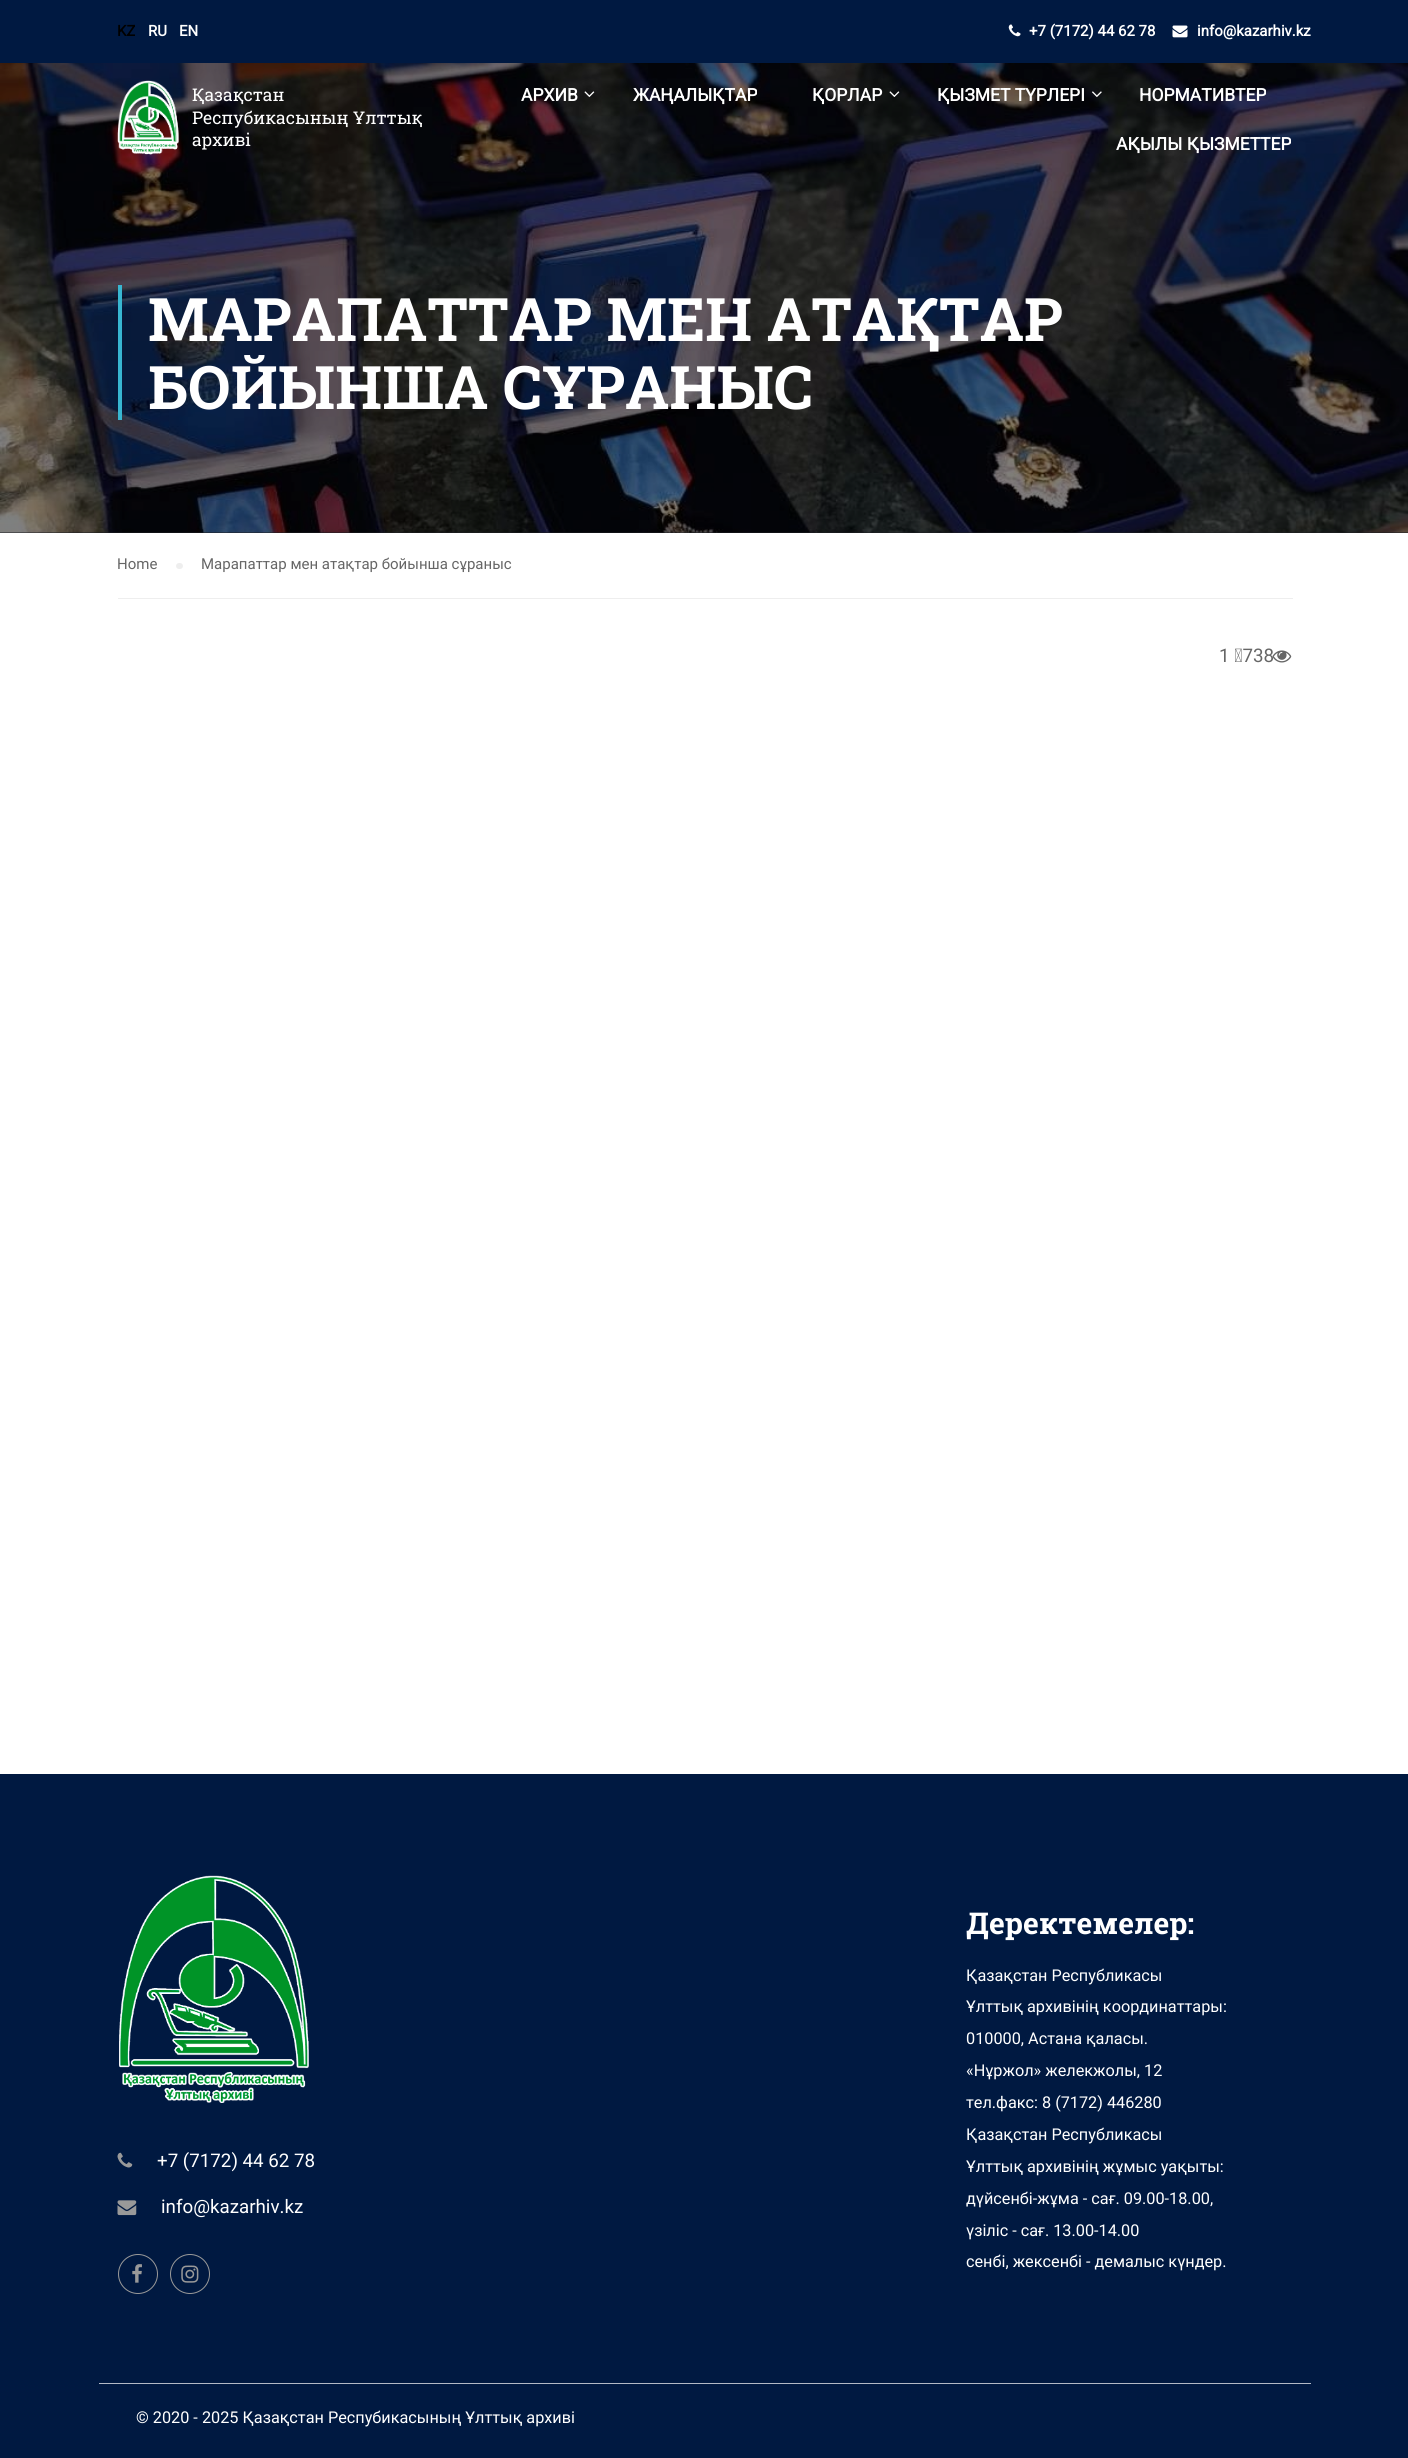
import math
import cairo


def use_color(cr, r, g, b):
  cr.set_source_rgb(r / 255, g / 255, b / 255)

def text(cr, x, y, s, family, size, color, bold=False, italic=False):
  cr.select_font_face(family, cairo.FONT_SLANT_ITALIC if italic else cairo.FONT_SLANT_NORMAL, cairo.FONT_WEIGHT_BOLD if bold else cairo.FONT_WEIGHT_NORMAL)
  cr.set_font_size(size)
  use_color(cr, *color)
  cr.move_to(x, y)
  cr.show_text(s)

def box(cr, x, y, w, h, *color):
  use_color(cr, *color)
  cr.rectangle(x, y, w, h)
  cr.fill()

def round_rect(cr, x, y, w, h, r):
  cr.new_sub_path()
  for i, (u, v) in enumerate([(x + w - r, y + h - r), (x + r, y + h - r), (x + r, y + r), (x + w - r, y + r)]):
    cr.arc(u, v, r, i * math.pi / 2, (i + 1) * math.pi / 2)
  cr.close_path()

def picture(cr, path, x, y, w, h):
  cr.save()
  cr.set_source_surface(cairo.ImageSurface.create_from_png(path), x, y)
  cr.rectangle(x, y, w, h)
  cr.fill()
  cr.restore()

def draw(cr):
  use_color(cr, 255, 255, 255)
  cr.paint()
  box(cr, 0, 0, 1408, 63, 0, 25, 65)
  picture(cr, "img_01.png", 1008, 24, 13, 13)
  picture(cr, "img_02.png", 1172, 25, 16, 13)
  box(cr, 0, 532, 1408, 1, 28, 31, 34)
  picture(cr, "img_07.png", 0, 63, 1408, 470)
  picture(cr, "img_03.png", 117, 80, 62, 75)
  picture(cr, "img_04.png", 584, 91, 11, 6)
  picture(cr, "img_05.png", 889, 91, 11, 6)
  picture(cr, "img_06.png", 1092, 91, 10, 6)
  box(cr, 118, 285, 4, 135, 56, 182, 209)
  box(cr, 118, 598, 1175, 1, 238, 238, 238)
  round_rect(cr, 176, 563, 7, 6, 3)
  cr.fill()
  picture(cr, "img_08.png", 1272, 650, 20, 13)
  box(cr, 0, 1774, 1408, 684, 0, 25, 65)
  picture(cr, "img_09.png", 119, 1875, 190, 228)
  picture(cr, "img_10.png", 117, 2152, 16, 16)
  picture(cr, "img_11.png", 117, 2200, 20, 16)
  cr.arc(138, 2274, 19.5, 0, 2 * math.pi)
  use_color(cr, 153, 153, 153)
  cr.set_line_width(1)
  cr.stroke()
  picture(cr, "img_12.png", 132, 2264, 10, 19)
  cr.arc(190, 2274, 19.5, 0, 2 * math.pi)
  cr.stroke()
  picture(cr, "img_13.png", 181, 2265, 18, 18)
  box(cr, 99, 2383, 1212, 1, 179, 186, 198)
  text(cr, 117, 36, "KZ", "Roboto", 15, (0, 0, 0), bold=True)
  text(cr, 148, 36, "RU", "Roboto", 15, (255, 255, 255), bold=True)
  text(cr, 179, 36, "EN", "Roboto", 15, (255, 255, 255), bold=True)
  text(cr, 1029, 36, "+7 (7172) 44 62 78", "Roboto", 15, (255, 255, 255), bold=True)
  text(cr, 1197, 36, "info@kazarhiv.kz", "Roboto", 15, (255, 255, 255), bold=True)
  text(cr, 192, 101, "Қазақстан", "Roboto Slab", 17.5, (255, 255, 255))
  text(cr, 192, 124, "Респубикасының Ұлттық", "Roboto Slab", 17.5, (255, 255, 255))
  text(cr, 192, 146, "архиві", "Roboto Slab", 17.5, (255, 255, 255))
  text(cr, 521, 101, "АРХИВ", "Roboto", 17.5, (255, 255, 255), bold=True)
  text(cr, 633, 101, "ЖАҢАЛЫҚТАР", "Roboto", 17.5, (255, 255, 255), bold=True)
  text(cr, 812, 101, "ҚОРЛАР", "Roboto", 17.5, (255, 255, 255), bold=True)
  text(cr, 937, 101, "ҚЫЗМЕТ ТҮРЛЕРІ", "Roboto", 17.5, (255, 255, 255), bold=True)
  text(cr, 1139, 101, "НОРМАТИВТЕР", "Roboto", 17.5, (255, 255, 255), bold=True)
  text(cr, 1116, 150, "АҚЫЛЫ ҚЫЗМЕТТЕР", "Roboto", 17.5, (255, 255, 255), bold=True)
  text(cr, 148, 341, "МАРАПАТТАР МЕН АТАҚТАР", "Roboto Slab", 60, (255, 255, 255), bold=True)
  text(cr, 148, 409, "БОЙЫНША СҰРАНЫС", "Roboto Slab", 60, (255, 255, 255), bold=True)
  text(cr, 117, 569, "Home", "Roboto", 15, (102, 102, 102))
  text(cr, 201, 569, "Марапаттар мен атақтар бойынша сұраныс", "Roboto", 15, (102, 102, 102))
  text(cr, 1219, 662, "1  738", "Roboto", 18.75, (102, 102, 102))
  text(cr, 157, 2167, "+7 (7172) 44 62 78", "Roboto", 18.75, (255, 255, 255))
  text(cr, 161, 2213, "info@kazarhiv.kz", "Roboto", 18.75, (255, 255, 255))
  text(cr, 966, 1934, "Деректемелер:", "Roboto Slab", 30, (255, 255, 255), bold=True)
  text(cr, 966, 1981, "Қазақстан Республикасы", "Roboto", 16.25, (255, 255, 255))
  text(cr, 966, 2012, "Ұлттық архивінің координаттары:", "Roboto", 16.25, (255, 255, 255))
  text(cr, 966, 2044, "010000, Астана қаласы.", "Roboto", 16.25, (255, 255, 255))
  text(cr, 966, 2076, "«Нұржол» желекжолы, 12", "Roboto", 16.25, (255, 255, 255))
  text(cr, 966, 2108, "тел.факс: 8 (7172) 446280", "Roboto", 16.25, (255, 255, 255))
  text(cr, 966, 2140, "Қазақстан Республикасы", "Roboto", 16.25, (255, 255, 255))
  text(cr, 966, 2172, "Ұлттық архивінің жұмыс уақыты:", "Roboto", 16.25, (255, 255, 255))
  text(cr, 966, 2204, "дүйсенбі-жұма - сағ. 09.00-18.00,", "Roboto", 16.25, (255, 255, 255))
  text(cr, 966, 2236, "үзіліс - сағ. 13.00-14.00", "Roboto", 16.25, (255, 255, 255))
  text(cr, 966, 2267, "сенбі, жексенбі - демалыс күндер.", "Roboto", 16.25, (255, 255, 255))
  text(cr, 136, 2423, "© 2020 - 2025 Қазақстан Респубикасының Ұлттық архиві", "Roboto", 16.25, (255, 255, 255))


surface = cairo.ImageSurface(cairo.FORMAT_RGB24, 1408, 2458)
cr = cairo.Context(surface)
options = cairo.FontOptions()
options.set_hint_metrics(cairo.HINT_METRICS_OFF)
options.set_hint_style(cairo.HINT_STYLE_NONE)
cr.set_font_options(options)
cr.set_miter_limit(4)
draw(cr)
surface.write_to_png("out.png")
